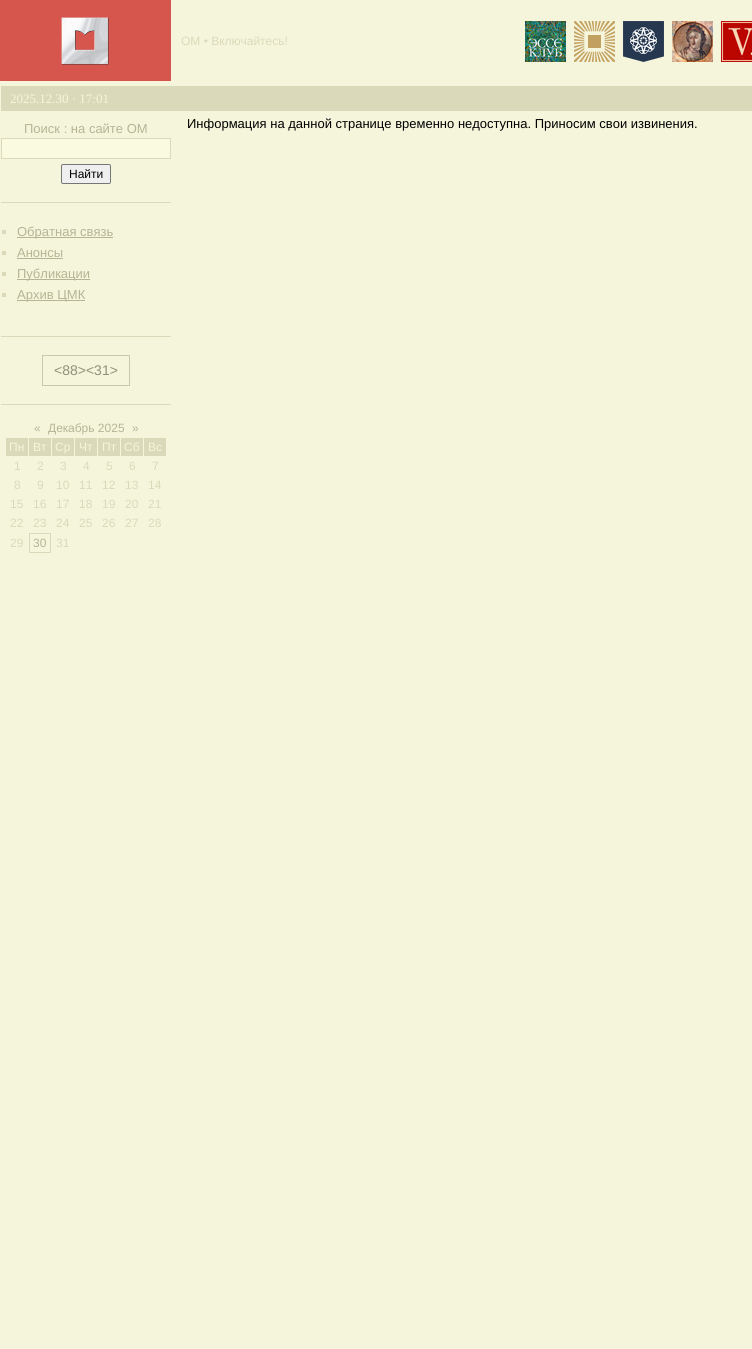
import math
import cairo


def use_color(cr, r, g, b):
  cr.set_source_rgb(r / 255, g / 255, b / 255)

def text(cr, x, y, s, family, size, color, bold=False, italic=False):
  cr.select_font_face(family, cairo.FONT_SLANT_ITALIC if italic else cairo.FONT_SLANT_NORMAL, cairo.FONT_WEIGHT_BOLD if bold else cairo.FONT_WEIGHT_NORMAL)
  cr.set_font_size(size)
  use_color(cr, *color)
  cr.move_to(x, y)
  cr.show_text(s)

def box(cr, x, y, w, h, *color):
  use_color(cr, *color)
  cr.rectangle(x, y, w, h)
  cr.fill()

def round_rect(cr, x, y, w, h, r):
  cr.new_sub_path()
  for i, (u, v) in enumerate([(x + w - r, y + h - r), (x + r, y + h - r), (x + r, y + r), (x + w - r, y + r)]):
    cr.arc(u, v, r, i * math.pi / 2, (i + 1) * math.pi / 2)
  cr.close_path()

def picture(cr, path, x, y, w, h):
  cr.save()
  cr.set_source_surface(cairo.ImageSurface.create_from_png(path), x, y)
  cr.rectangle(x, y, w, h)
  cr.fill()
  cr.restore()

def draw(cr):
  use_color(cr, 245, 245, 220)
  cr.paint()
  box(cr, 0, 0, 171, 81, 214, 86, 77)
  picture(cr, "img_01.png", 61, 17, 48, 48)
  picture(cr, "img_02.png", 525, 21, 41, 41)
  picture(cr, "img_03.png", 574, 21, 41, 41)
  picture(cr, "img_04.png", 623, 21, 41, 41)
  picture(cr, "img_05.png", 672, 21, 41, 41)
  picture(cr, "img_06.png", 721, 21, 31, 41)
  box(cr, 1, 86, 751, 25, 218, 218, 186)
  box(cr, 1, 202, 170, 1, 218, 218, 186)
  use_color(cr, 250, 250, 225)
  cr.rectangle(1.5, 138.5, 169, 20)
  cr.fill_preserve()
  use_color(cr, 218, 218, 186)
  cr.set_line_width(1)
  cr.stroke()
  use_color(cr, 239, 239, 239)
  round_rect(cr, 61.5, 164.5, 49, 19, 1.5)
  cr.fill_preserve()
  use_color(cr, 118, 118, 118)
  cr.stroke()
  box(cr, 1, 336, 170, 1, 218, 218, 186)
  box(cr, 2, 230, 4, 4, 218, 218, 186)
  box(cr, 17, 237, 96, 1, 181, 181, 149)
  box(cr, 2, 251, 4, 4, 218, 218, 186)
  box(cr, 17, 258, 46, 1, 181, 181, 149)
  box(cr, 2, 272, 4, 4, 218, 218, 186)
  box(cr, 17, 279, 73, 1, 181, 181, 149)
  box(cr, 2, 293, 4, 4, 218, 218, 186)
  box(cr, 17, 300, 68, 1, 181, 181, 149)
  box(cr, 1, 404, 170, 1, 218, 218, 186)
  cr.rectangle(42.5, 355.5, 87, 30)
  use_color(cr, 201, 201, 169)
  cr.stroke()
  box(cr, 6, 438, 22, 18, 218, 218, 186)
  box(cr, 29, 438, 22, 18, 218, 218, 186)
  box(cr, 52, 438, 22, 18, 218, 218, 186)
  box(cr, 75, 438, 22, 18, 218, 218, 186)
  box(cr, 98, 438, 22, 18, 218, 218, 186)
  box(cr, 121, 438, 22, 18, 218, 218, 186)
  box(cr, 144, 438, 22, 18, 218, 218, 186)
  cr.rectangle(29.5, 533.5, 21, 19)
  cr.stroke()
  text(cr, 181, 45, "ОМ • Включайтесь!", "Liberation Sans", 12, (218, 218, 186))
  text(cr, 10, 103, "2025.12.30 · 17:01", "Liberation Serif", 13, (245, 245, 220))
  text(cr, 24, 133, "Поиск : на сайте ОМ", "Liberation Sans", 13, (181, 181, 149))
  text(cr, 69, 178, "Найти", "Liberation Sans", 12, (0, 0, 0))
  text(cr, 17, 236, "Обратная связь", "Liberation Sans", 13, (181, 181, 149))
  text(cr, 17, 257, "Анонсы", "Liberation Sans", 13, (181, 181, 149))
  text(cr, 17, 278, "Публикации", "Liberation Sans", 13, (181, 181, 149))
  text(cr, 17, 299, "Архив ЦМК", "Liberation Sans", 13, (181, 181, 149))
  text(cr, 54, 375, "<88><31>", "Liberation Sans", 14, (144, 144, 121))
  text(cr, 34, 432, "«", "Liberation Sans", 12, (181, 181, 149))
  text(cr, 48, 432, "Декабрь 2025", "Liberation Sans", 12, (181, 181, 149))
  text(cr, 132, 432, "»", "Liberation Sans", 12, (181, 181, 149))
  text(cr, 9, 451, "Пн", "Liberation Sans", 12, (245, 245, 220))
  text(cr, 33, 451, "Вт", "Liberation Sans", 12, (245, 245, 220))
  text(cr, 55, 451, "Ср", "Liberation Sans", 12, (245, 245, 220))
  text(cr, 79, 451, "Чт", "Liberation Sans", 12, (245, 245, 220))
  text(cr, 102, 451, "Пт", "Liberation Sans", 12, (245, 245, 220))
  text(cr, 124, 451, "Сб", "Liberation Sans", 12, (245, 245, 220))
  text(cr, 148, 451, "Вс", "Liberation Sans", 12, (245, 245, 220))
  text(cr, 14, 470, "1", "Liberation Sans", 12, (218, 218, 186))
  text(cr, 37, 470, "2", "Liberation Sans", 12, (218, 218, 186))
  text(cr, 60, 470, "3", "Liberation Sans", 12, (218, 218, 186))
  text(cr, 83, 470, "4", "Liberation Sans", 12, (218, 218, 186))
  text(cr, 106, 470, "5", "Liberation Sans", 12, (218, 218, 186))
  text(cr, 129, 470, "6", "Liberation Sans", 12, (218, 218, 186))
  text(cr, 152, 470, "7", "Liberation Sans", 12, (218, 218, 186))
  text(cr, 14, 489, "8", "Liberation Sans", 12, (218, 218, 186))
  text(cr, 37, 489, "9", "Liberation Sans", 12, (218, 218, 186))
  text(cr, 56, 489, "10", "Liberation Sans", 12, (218, 218, 186))
  text(cr, 79, 489, "11", "Liberation Sans", 12, (218, 218, 186))
  text(cr, 102, 489, "12", "Liberation Sans", 12, (218, 218, 186))
  text(cr, 125, 489, "13", "Liberation Sans", 12, (218, 218, 186))
  text(cr, 148, 489, "14", "Liberation Sans", 12, (218, 218, 186))
  text(cr, 10, 508, "15", "Liberation Sans", 12, (218, 218, 186))
  text(cr, 33, 508, "16", "Liberation Sans", 12, (218, 218, 186))
  text(cr, 56, 508, "17", "Liberation Sans", 12, (218, 218, 186))
  text(cr, 79, 508, "18", "Liberation Sans", 12, (218, 218, 186))
  text(cr, 102, 508, "19", "Liberation Sans", 12, (218, 218, 186))
  text(cr, 125, 508, "20", "Liberation Sans", 12, (218, 218, 186))
  text(cr, 148, 508, "21", "Liberation Sans", 12, (218, 218, 186))
  text(cr, 10, 527, "22", "Liberation Sans", 12, (218, 218, 186))
  text(cr, 33, 527, "23", "Liberation Sans", 12, (218, 218, 186))
  text(cr, 56, 527, "24", "Liberation Sans", 12, (218, 218, 186))
  text(cr, 79, 527, "25", "Liberation Sans", 12, (218, 218, 186))
  text(cr, 102, 527, "26", "Liberation Sans", 12, (218, 218, 186))
  text(cr, 125, 527, "27", "Liberation Sans", 12, (218, 218, 186))
  text(cr, 148, 527, "28", "Liberation Sans", 12, (218, 218, 186))
  text(cr, 10, 547, "29", "Liberation Sans", 12, (218, 218, 186))
  text(cr, 33, 547, "30", "Liberation Sans", 12, (181, 181, 149))
  text(cr, 56, 547, "31", "Liberation Sans", 12, (218, 218, 186))
  text(cr, 187, 128, "Информация на данной странице временно недоступна. Приносим свои извинения.", "Liberation Sans", 13, (0, 0, 0))


surface = cairo.ImageSurface(cairo.FORMAT_RGB24, 752, 1349)
cr = cairo.Context(surface)
options = cairo.FontOptions()
options.set_hint_metrics(cairo.HINT_METRICS_OFF)
options.set_hint_style(cairo.HINT_STYLE_NONE)
cr.set_font_options(options)
cr.set_miter_limit(4)
draw(cr)
surface.write_to_png("out.png")
